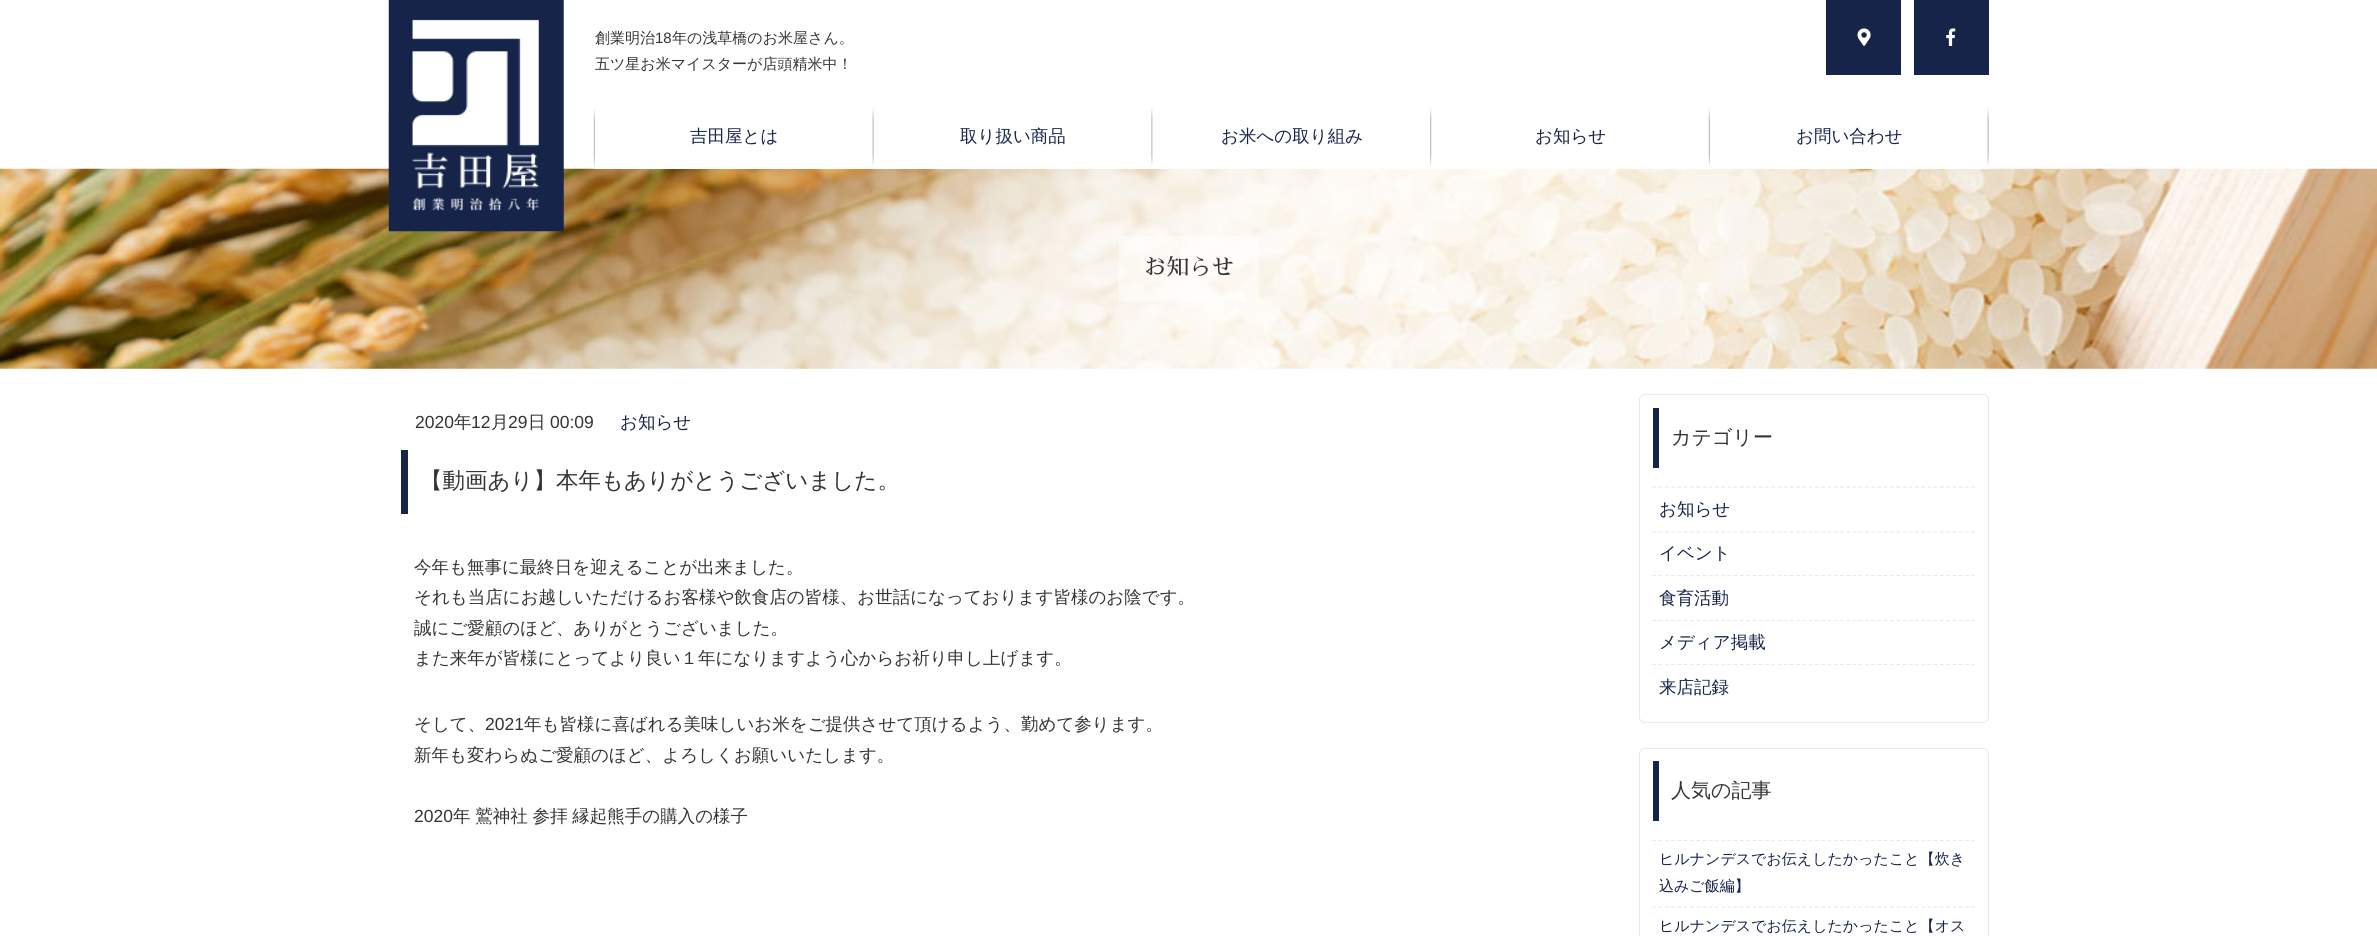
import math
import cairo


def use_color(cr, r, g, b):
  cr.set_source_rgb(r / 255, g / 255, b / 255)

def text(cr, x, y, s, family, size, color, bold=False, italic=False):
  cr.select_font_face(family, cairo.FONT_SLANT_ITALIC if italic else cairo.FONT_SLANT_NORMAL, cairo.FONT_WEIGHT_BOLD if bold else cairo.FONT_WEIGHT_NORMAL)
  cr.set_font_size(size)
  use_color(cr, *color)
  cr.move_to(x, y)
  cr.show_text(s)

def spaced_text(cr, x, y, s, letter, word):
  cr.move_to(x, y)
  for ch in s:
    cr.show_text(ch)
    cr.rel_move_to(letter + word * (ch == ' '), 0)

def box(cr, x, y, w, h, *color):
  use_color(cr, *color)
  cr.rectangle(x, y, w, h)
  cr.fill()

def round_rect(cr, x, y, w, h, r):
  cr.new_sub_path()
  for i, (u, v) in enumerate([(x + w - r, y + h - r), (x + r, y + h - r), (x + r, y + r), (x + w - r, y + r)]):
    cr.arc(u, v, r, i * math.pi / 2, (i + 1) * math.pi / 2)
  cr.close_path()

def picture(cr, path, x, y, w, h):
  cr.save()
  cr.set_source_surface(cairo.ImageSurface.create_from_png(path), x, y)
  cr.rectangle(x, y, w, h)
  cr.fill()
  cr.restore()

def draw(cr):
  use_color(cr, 255, 255, 255)
  cr.paint()
  picture(cr, "img_04.png", 388, 109, 1, 59)
  picture(cr, "img_10.png", 0, 168, 2377, 201)
  picture(cr, "img_01.png", 388, 0, 176, 232)
  box(cr, 1826, 0, 75, 75, 22, 36, 74)
  picture(cr, "img_02.png", 1857, 28, 14, 18)
  box(cr, 1914, 0, 75, 75, 22, 36, 74)
  picture(cr, "img_03.png", 1946, 28, 10, 18)
  picture(cr, "img_05.png", 593, 109, 2, 60)
  picture(cr, "img_06.png", 872, 108, 2, 58)
  box(cr, 595, 168, 1394, 1, 255, 255, 255)
  picture(cr, "img_07.png", 1151, 108, 2, 58)
  picture(cr, "img_08.png", 1430, 107, 2, 59)
  picture(cr, "img_09.png", 1708, 107, 2, 59)
  picture(cr, "img_06.png", 1987, 108, 2, 58)
  cr.set_source_rgba(1, 1, 1, 0.5)
  cr.rectangle(1119, 236, 140, 65)
  cr.fill()
  box(cr, 401, 450, 7, 64, 22, 36, 74)
  round_rect(cr, 1639.5, 394.5, 349, 328, 5.5)
  use_color(cr, 238, 234, 225)
  cr.set_line_width(1)
  cr.stroke()
  box(cr, 1653, 408, 6, 60, 22, 36, 74)
  cr.new_path()
  cr.move_to(1652.5, 487)
  cr.line_to(1975, 487)
  use_color(cr, 238, 234, 225)
  cr.set_line_width(1.2)
  cr.set_dash([3.75, 2.5])
  cr.stroke()
  cr.new_path()
  cr.move_to(1652.5, 532)
  cr.line_to(1975, 532)
  cr.stroke()
  cr.new_path()
  cr.move_to(1652.5, 575.5)
  cr.line_to(1975, 575.5)
  cr.stroke()
  cr.new_path()
  cr.move_to(1652.5, 620.5)
  cr.line_to(1975, 620.5)
  cr.stroke()
  cr.new_path()
  cr.move_to(1652.5, 664.5)
  cr.line_to(1975, 664.5)
  cr.stroke()
  round_rect(cr, 1639.5, 748.5, 349, 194, 5.5)
  cr.set_line_width(1)
  cr.set_dash([])
  cr.stroke()
  box(cr, 1653, 761, 6, 60, 22, 36, 74)
  cr.new_path()
  cr.move_to(1652.5, 840.5)
  cr.line_to(1975, 840.5)
  use_color(cr, 238, 234, 225)
  cr.set_line_width(1.2)
  cr.set_dash([3.75, 2.5])
  cr.stroke()
  cr.new_path()
  cr.move_to(1652.5, 907)
  cr.line_to(1975, 907)
  cr.stroke()
  text(cr, 595, 43, "創業明治", "WenQuanYi Zen Hei Medium", 15, (51, 51, 51))
  text(cr, 655, 43, "18", "Liberation Sans", 15, (51, 51, 51))
  text(cr, 672, 43, "年の浅草橋のお米屋さん。", "WenQuanYi Zen Hei Medium", 15, (51, 51, 51))
  text(cr, 595, 69, "五ツ星お米マイスターが店頭精米中！", "WenQuanYi Zen Hei Medium", 15, (51, 51, 51))
  text(cr, 690, 142, "吉田屋とは", "WenQuanYi Zen Hei Medium", 17.5, (22, 36, 74))
  text(cr, 960, 142, "取り扱い商品", "WenQuanYi Zen Hei Medium", 17.5, (22, 36, 74))
  text(cr, 1221, 142, "お米への取り組み", "WenQuanYi Zen Hei Medium", 17.5, (22, 36, 74))
  text(cr, 1535, 142, "お知らせ", "WenQuanYi Zen Hei Medium", 17.5, (22, 36, 74))
  text(cr, 1796, 142, "お問い合わせ", "WenQuanYi Zen Hei Medium", 17.5, (22, 36, 74))
  text(cr, 1144, 275, "お知らせ", "Sawarabi Mincho", 22.5, (51, 51, 51))
  text(cr, 415, 428, "2020", "Liberation Sans", 17.5, (51, 51, 51))
  text(cr, 454, 428, "年", "WenQuanYi Zen Hei Medium", 17.5, (51, 51, 51))
  text(cr, 471, 428, "12", "Liberation Sans", 17.5, (51, 51, 51))
  text(cr, 491, 428, "月", "WenQuanYi Zen Hei Medium", 17.5, (51, 51, 51))
  text(cr, 508, 428, "29", "Liberation Sans", 17.5, (51, 51, 51))
  text(cr, 528, 428, "日", "WenQuanYi Zen Hei Medium", 17.5, (51, 51, 51))
  text(cr, 550, 428, "00:09", "Liberation Sans", 17.5, (51, 51, 51))
  text(cr, 620, 428, "お知らせ", "WenQuanYi Zen Hei Medium", 17.5, (22, 36, 74))
  text(cr, 420, 488, "【動画あり】本年もありがとうございました。", "WenQuanYi Zen Hei Medium", 22.5, (51, 51, 51))
  text(cr, 414, 573, "今年も無事に最終日を迎えることが出来ました。", "WenQuanYi Zen Hei Medium", 17.5, (51, 51, 51))
  text(cr, 414, 603, "それも当店にお越しいただけるお客様や飲食店の皆様、お世話になっております皆様のお陰です。", "WenQuanYi Zen Hei Medium", 17.5, (51, 51, 51))
  text(cr, 414, 634, "誠にご愛顧のほど、ありがとうございました。", "WenQuanYi Zen Hei Medium", 17.5, (51, 51, 51))
  text(cr, 414, 664, "また来年が皆様にとってより良い１年になりますよう心からお祈り申し上げます。", "WenQuanYi Zen Hei Medium", 17.5, (51, 51, 51))
  text(cr, 414, 730, "そして、", "WenQuanYi Zen Hei Medium", 17.5, (51, 51, 51))
  text(cr, 485, 730, "2021", "Liberation Sans", 17.5, (51, 51, 51))
  text(cr, 524, 730, "年も皆様に喜ばれる美味しいお米をご提供させて頂けるよう、勤めて参ります。", "WenQuanYi Zen Hei Medium", 17.5, (51, 51, 51))
  text(cr, 414, 761, "新年も変わらぬご愛顧のほど、よろしくお願いいたします。", "WenQuanYi Zen Hei Medium", 17.5, (51, 51, 51))
  text(cr, 414, 822, "2020", "Liberation Sans", 17.5, (51, 51, 51))
  cr.select_font_face("WenQuanYi Zen Hei Medium")
  spaced_text(cr, 453, 822, "年 鷲神社 参拝 縁起熊手の購入の様子", 0, -0.5)
  text(cr, 1671, 444, "カテゴリー", "WenQuanYi Zen Hei Medium", 20, (51, 51, 51))
  text(cr, 1659, 515, "お知らせ", "WenQuanYi Zen Hei Medium", 17.5, (22, 36, 74))
  text(cr, 1659, 559, "イベント", "WenQuanYi Zen Hei Medium", 17.5, (22, 36, 74))
  text(cr, 1659, 604, "食育活動", "WenQuanYi Zen Hei Medium", 17.5, (22, 36, 74))
  text(cr, 1659, 648, "メディア掲載", "WenQuanYi Zen Hei Medium", 17.5, (22, 36, 74))
  text(cr, 1659, 693, "来店記録", "WenQuanYi Zen Hei Medium", 17.5, (22, 36, 74))
  text(cr, 1671, 797, "人気の記事", "WenQuanYi Zen Hei Medium", 20, (51, 51, 51))
  text(cr, 1659, 864, "ヒルナンデスでお伝えしたかったこと【炊き", "WenQuanYi Zen Hei Medium", 15, (22, 36, 74))
  text(cr, 1659, 891, "込みご飯編】", "WenQuanYi Zen Hei Medium", 15, (22, 36, 74))
  text(cr, 1659, 931, "ヒルナンデスでお伝えしたかったこと【オス", "WenQuanYi Zen Hei Medium", 15, (22, 36, 74))


surface = cairo.ImageSurface(cairo.FORMAT_RGB24, 2377, 936)
cr = cairo.Context(surface)
options = cairo.FontOptions()
options.set_hint_metrics(cairo.HINT_METRICS_OFF)
options.set_hint_style(cairo.HINT_STYLE_NONE)
cr.set_font_options(options)
cr.set_miter_limit(4)
draw(cr)
surface.write_to_png("out.png")
